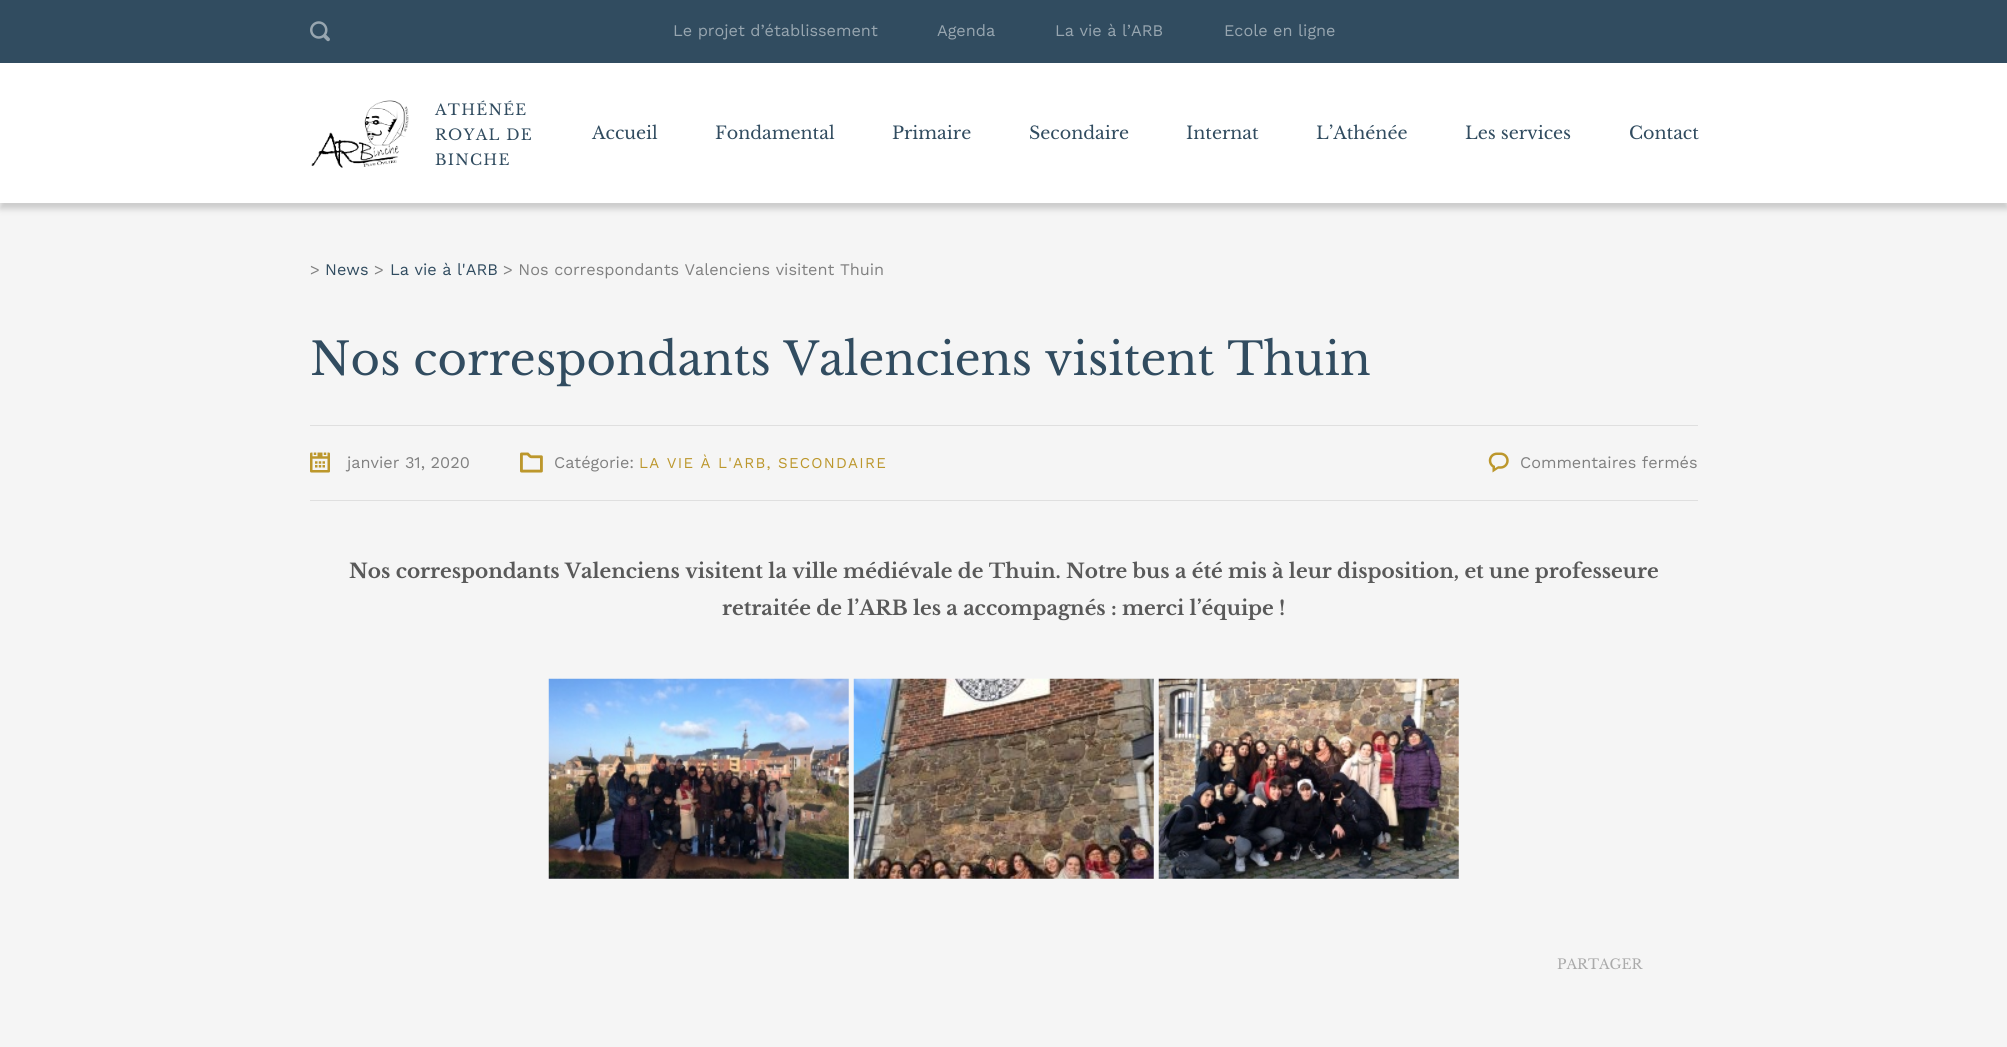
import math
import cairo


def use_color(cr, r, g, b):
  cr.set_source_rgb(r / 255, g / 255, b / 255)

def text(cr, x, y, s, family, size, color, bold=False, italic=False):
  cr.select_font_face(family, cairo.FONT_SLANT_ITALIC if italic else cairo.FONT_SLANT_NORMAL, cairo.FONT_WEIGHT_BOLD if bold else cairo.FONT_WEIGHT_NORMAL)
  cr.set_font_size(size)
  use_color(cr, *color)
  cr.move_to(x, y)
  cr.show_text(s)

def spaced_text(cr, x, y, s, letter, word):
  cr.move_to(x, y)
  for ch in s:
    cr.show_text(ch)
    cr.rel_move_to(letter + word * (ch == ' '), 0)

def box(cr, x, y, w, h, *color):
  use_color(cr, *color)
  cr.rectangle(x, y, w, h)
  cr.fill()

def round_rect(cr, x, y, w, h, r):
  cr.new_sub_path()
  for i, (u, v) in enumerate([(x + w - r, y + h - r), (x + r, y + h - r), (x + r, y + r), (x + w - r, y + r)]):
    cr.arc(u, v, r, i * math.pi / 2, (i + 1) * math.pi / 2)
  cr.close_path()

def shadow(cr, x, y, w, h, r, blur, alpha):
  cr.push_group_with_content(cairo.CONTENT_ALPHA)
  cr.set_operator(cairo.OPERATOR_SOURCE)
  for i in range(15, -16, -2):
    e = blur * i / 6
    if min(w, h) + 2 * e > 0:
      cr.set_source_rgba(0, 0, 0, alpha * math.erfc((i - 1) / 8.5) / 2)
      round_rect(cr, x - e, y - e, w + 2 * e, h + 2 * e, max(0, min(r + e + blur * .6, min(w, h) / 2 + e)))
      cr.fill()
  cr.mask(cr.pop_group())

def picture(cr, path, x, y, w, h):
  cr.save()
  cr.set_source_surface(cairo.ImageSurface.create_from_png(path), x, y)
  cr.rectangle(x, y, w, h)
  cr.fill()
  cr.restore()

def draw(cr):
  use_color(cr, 245, 245, 245)
  cr.paint()
  use_color(cr, 204, 204, 204)
  shadow(cr, 0, 6, 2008, 203, 0, 3, 1)
  box(cr, 0, 63, 2007, 140, 255, 255, 255)
  box(cr, 0, 0, 2007, 63, 49, 76, 96)
  picture(cr, "img_01.png", 310, 21, 20, 21)
  picture(cr, "img_02.png", 311, 100, 98, 68)
  box(cr, 310, 425, 1388, 1, 223, 223, 223)
  box(cr, 310, 500, 1388, 1, 223, 223, 223)
  picture(cr, "img_03.png", 310, 452, 20, 21)
  picture(cr, "img_04.png", 520, 452, 23, 21)
  picture(cr, "img_05.png", 1488, 452, 21, 21)
  picture(cr, "img_06.png", 548, 678, 301, 201)
  picture(cr, "img_07.png", 853, 678, 301, 201)
  picture(cr, "img_08.png", 1158, 678, 301, 201)
  text(cr, 673, 36, "Le projet d’établissement", "Work Sans", 16.25, (152, 166, 176))
  text(cr, 937, 36, "Agenda", "Work Sans", 16.25, (152, 166, 176))
  text(cr, 1055, 36, "La vie à l’ARB", "Work Sans", 16.25, (152, 166, 176))
  text(cr, 1224, 36, "Ecole en ligne", "Work Sans", 16.25, (152, 166, 176))
  cr.select_font_face("Libre Baskerville")
  cr.set_font_size(15)
  use_color(cr, 49, 76, 96)
  spaced_text(cr, 435, 115, "ATHÉNÉE", 1.25, 0)
  spaced_text(cr, 435, 140, "ROYAL DE", 1.25, 0)
  spaced_text(cr, 435, 165, "BINCHE", 1.25, 0)
  text(cr, 592, 139, "Accueil", "Libre Baskerville", 17.5, (49, 76, 96))
  text(cr, 715, 139, "Fondamental", "Libre Baskerville", 17.5, (49, 76, 96))
  text(cr, 892, 139, "Primaire", "Libre Baskerville", 17.5, (49, 76, 96))
  text(cr, 1029, 139, "Secondaire", "Libre Baskerville", 17.5, (49, 76, 96))
  text(cr, 1186, 139, "Internat", "Libre Baskerville", 17.5, (49, 76, 96))
  text(cr, 1316, 139, "L’Athénée", "Libre Baskerville", 17.5, (49, 76, 96))
  text(cr, 1465, 139, "Les services", "Libre Baskerville", 17.5, (49, 76, 96))
  text(cr, 1629, 139, "Contact", "Libre Baskerville", 17.5, (49, 76, 96))
  text(cr, 310, 275, ">", "Work Sans", 16.25, (128, 128, 128))
  text(cr, 325, 275, "News", "Work Sans", 16.25, (49, 76, 96))
  text(cr, 374, 275, ">", "Work Sans", 16.25, (128, 128, 128))
  text(cr, 390, 275, "La vie à l'ARB", "Work Sans", 16.25, (49, 76, 96))
  text(cr, 503, 275, "> Nos correspondants Valenciens visitent Thuin", "Work Sans", 16.25, (128, 128, 128))
  text(cr, 310, 375, "Nos correspondants Valenciens visitent Thuin", "Libre Baskerville", 45, (49, 76, 96))
  text(cr, 347, 468, "janvier 31, 2020", "Work Sans", 16.25, (128, 128, 128))
  text(cr, 554, 468, "Catégorie:", "Work Sans", 16.25, (128, 128, 128))
  cr.set_font_size(15)
  use_color(cr, 188, 151, 44)
  spaced_text(cr, 639, 468, "LA VIE À L'ARB, SECONDAIRE", 1.25, 0)
  text(cr, 1520, 468, "Commentaires fermés", "Work Sans", 16.25, (128, 128, 128))
  text(cr, 349, 578, "Nos correspondants Valenciens visitent la ville médiévale de Thuin. Notre bus a été mis à leur disposition, et une professeure", "Libre Baskerville", 20, (89, 89, 89), bold=True)
  text(cr, 722, 615, "retraitée de l’ARB les a accompagnés : merci l’équipe !", "Libre Baskerville", 20, (89, 89, 89), bold=True)
  text(cr, 1557, 969, "PARTAGER", "Libre Baskerville", 13.75, (170, 170, 170))


surface = cairo.ImageSurface(cairo.FORMAT_RGB24, 2007, 1047)
cr = cairo.Context(surface)
options = cairo.FontOptions()
options.set_hint_metrics(cairo.HINT_METRICS_OFF)
options.set_hint_style(cairo.HINT_STYLE_NONE)
cr.set_font_options(options)
cr.set_miter_limit(4)
draw(cr)
surface.write_to_png("out.png")
